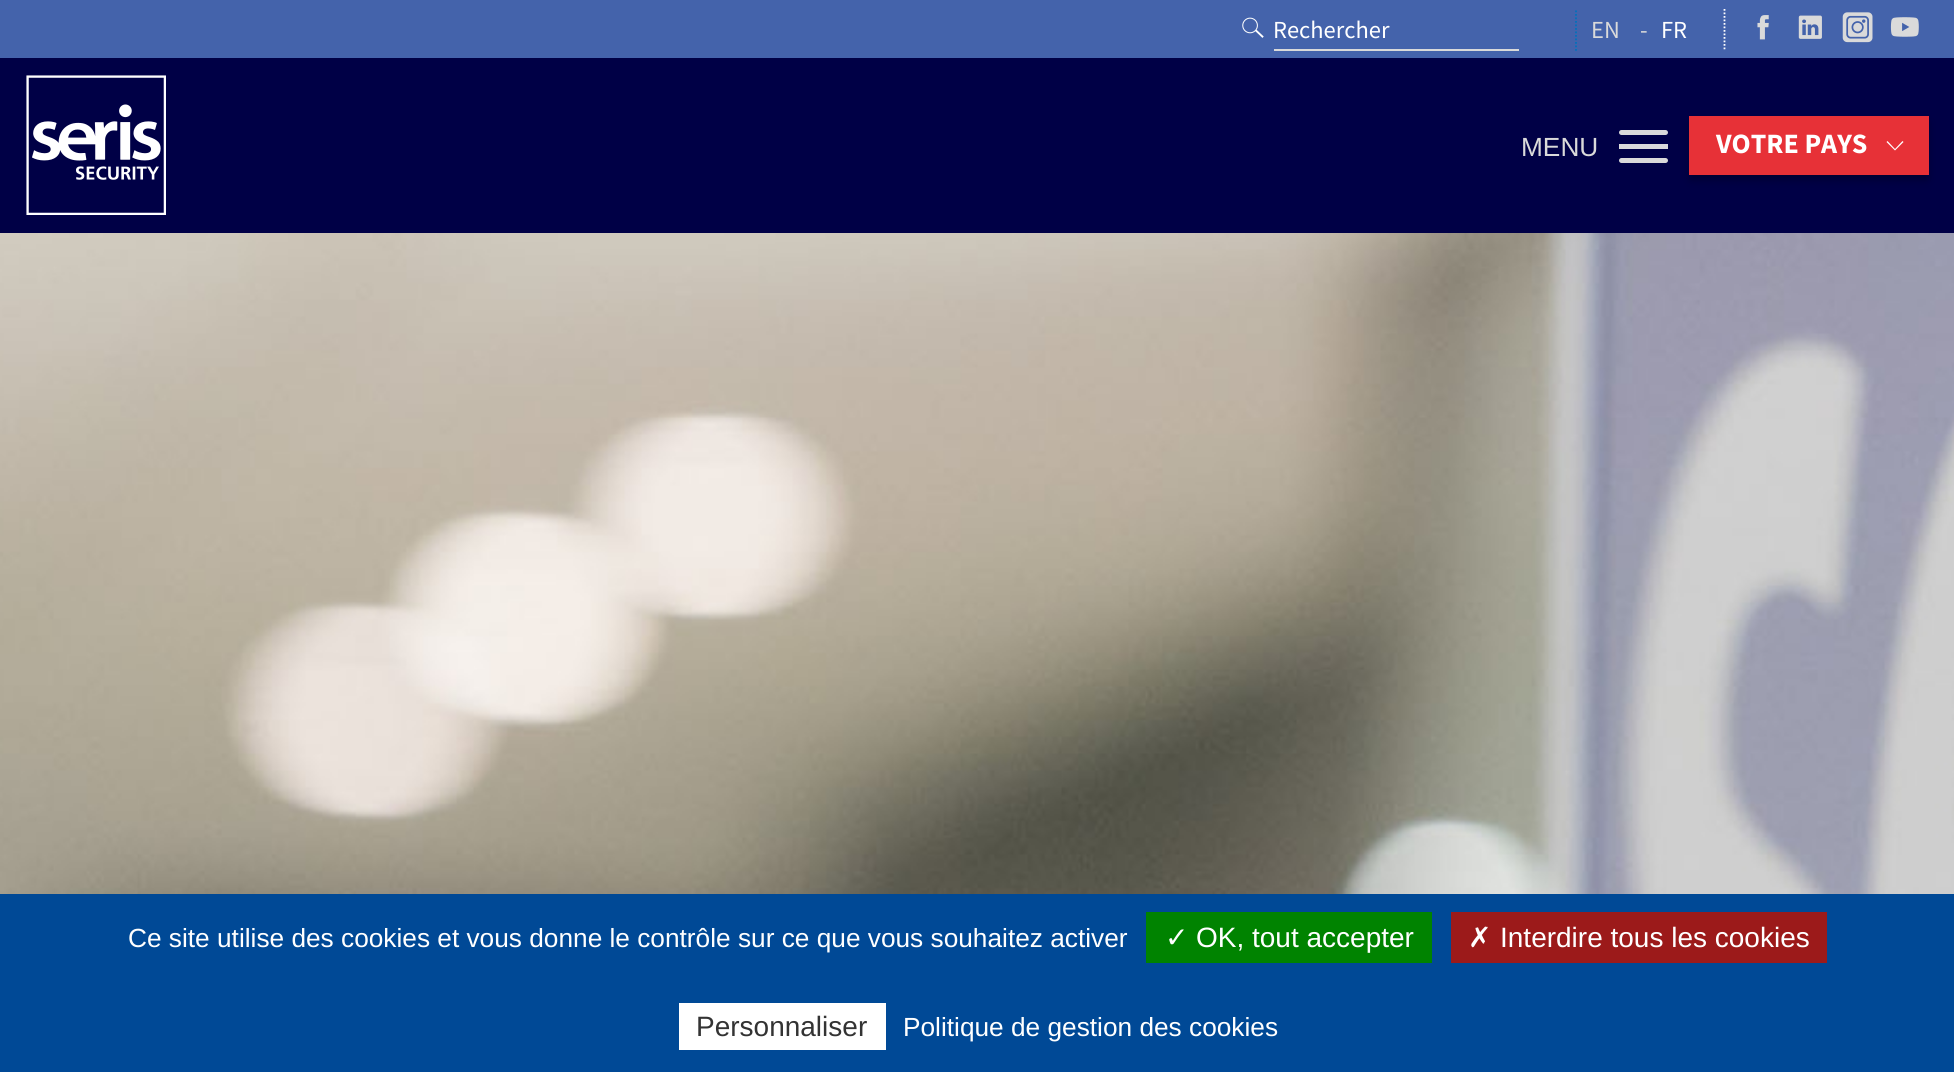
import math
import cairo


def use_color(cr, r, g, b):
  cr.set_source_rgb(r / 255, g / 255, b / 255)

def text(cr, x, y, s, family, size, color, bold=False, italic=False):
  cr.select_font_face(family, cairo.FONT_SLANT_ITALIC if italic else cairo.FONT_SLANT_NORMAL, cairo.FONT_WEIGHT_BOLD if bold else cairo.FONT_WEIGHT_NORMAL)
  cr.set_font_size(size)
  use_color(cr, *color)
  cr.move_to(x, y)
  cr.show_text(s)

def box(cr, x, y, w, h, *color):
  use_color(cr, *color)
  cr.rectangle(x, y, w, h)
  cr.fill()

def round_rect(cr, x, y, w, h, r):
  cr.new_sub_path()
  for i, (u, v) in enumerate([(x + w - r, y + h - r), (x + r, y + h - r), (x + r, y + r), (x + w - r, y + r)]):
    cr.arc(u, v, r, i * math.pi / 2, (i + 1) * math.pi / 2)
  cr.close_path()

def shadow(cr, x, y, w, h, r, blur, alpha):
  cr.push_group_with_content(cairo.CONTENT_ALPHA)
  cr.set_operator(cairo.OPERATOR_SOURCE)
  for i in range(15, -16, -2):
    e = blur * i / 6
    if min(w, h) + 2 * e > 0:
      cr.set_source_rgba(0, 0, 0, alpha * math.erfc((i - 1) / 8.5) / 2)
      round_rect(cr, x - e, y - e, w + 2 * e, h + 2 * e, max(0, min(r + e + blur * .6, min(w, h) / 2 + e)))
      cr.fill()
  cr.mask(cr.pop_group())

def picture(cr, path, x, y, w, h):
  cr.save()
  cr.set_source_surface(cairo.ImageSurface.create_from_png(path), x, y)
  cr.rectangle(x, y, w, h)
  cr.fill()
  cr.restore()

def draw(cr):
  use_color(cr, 255, 255, 255)
  cr.paint()
  box(cr, 0, 0, 1954, 58, 68, 99, 171)
  picture(cr, "img_01.png", 1242, 17, 22, 21)
  box(cr, 1274, 49, 245, 2, 218, 218, 218)
  cr.new_path()
  cr.move_to(1576, 10.5)
  cr.line_to(1576, 51)
  use_color(cr, 0, 113, 187)
  cr.set_line_width(1.8)
  cr.set_dash([1.75, 1.75])
  cr.stroke()
  cr.new_path()
  cr.move_to(1724.5, 9)
  cr.line_to(1724.5, 51)
  use_color(cr, 255, 255, 255)
  cr.stroke()
  picture(cr, "img_02.png", 1757, 15, 12, 25)
  picture(cr, "img_03.png", 1798, 15, 24, 24)
  picture(cr, "img_04.png", 1842, 12, 31, 31)
  picture(cr, "img_05.png", 1890, 17, 29, 20)
  box(cr, 0, 58, 1954, 175, 0, 0, 70)
  picture(cr, "img_06.png", 26, 75, 140, 140)
  box(cr, 1619, 144, 49, 5, 218, 218, 218)
  round_rect(cr, 1619, 130, 49, 5, 2.5)
  cr.fill()
  round_rect(cr, 1619, 158, 49, 5, 2.5)
  cr.fill()
  use_color(cr, 0, 0, 0)
  shadow(cr, 1691, 123, 236, 56, 0, 4.5, 0.35)
  box(cr, 1689, 116, 240, 59, 231, 49, 55)
  use_color(cr, 255, 255, 255)
  cr.new_path()
  cr.move_to(1903.5, 142)
  cr.line_to(1902.5, 141)
  cr.line_to(1895, 149)
  cr.line_to(1887.5, 141)
  cr.line_to(1886.5, 142)
  cr.line_to(1895, 150.5)
  cr.close_path()
  cr.fill()
  picture(cr, "img_07.png", 0, 233, 1954, 661)
  box(cr, 0, 894, 1954, 178, 0, 73, 150)
  box(cr, 1146, 912, 286, 51, 0, 131, 0)
  box(cr, 1451, 912, 376, 51, 156, 26, 26)
  box(cr, 679, 1003, 207, 47, 255, 255, 255)
  text(cr, 1273, 38, "Rechercher", "Source Sans Pro", 24.5, (255, 255, 255))
  text(cr, 1591, 38, "EN", "Source Sans Pro", 24.5, (218, 218, 218))
  text(cr, 1640, 38, "-", "Source Sans Pro", 24.5, (218, 218, 218))
  text(cr, 1661, 38, "FR", "Source Sans Pro", 24.5, (255, 255, 255))
  text(cr, 1521, 156, "MENU", "Liberation Sans", 26.25, (218, 218, 218))
  text(cr, 1716, 153, "VOTRE PAYS", "Source Sans Pro", 28, (255, 255, 255), bold=True)
  text(cr, 128, 947, "Ce site utilise des cookies et vous donne le contrôle sur ce que vous souhaitez activer", "Liberation Sans", 26.25, (255, 255, 255))
  text(cr, 1165, 947, "✓", "DejaVu Sans", 28, (255, 255, 255))
  text(cr, 1196, 947, "OK, tout accepter", "Liberation Sans", 28, (255, 255, 255))
  text(cr, 1468, 947, "✗", "DejaVu Sans", 28, (255, 255, 255))
  text(cr, 1500, 947, "Interdire tous les cookies", "Liberation Sans", 28, (255, 255, 255))
  text(cr, 696, 1036, "Personnaliser", "Liberation Sans", 28, (51, 51, 51))
  text(cr, 903, 1036, "Politique de gestion des cookies", "Liberation Sans", 26.25, (255, 255, 255))


surface = cairo.ImageSurface(cairo.FORMAT_RGB24, 1954, 1072)
cr = cairo.Context(surface)
options = cairo.FontOptions()
options.set_hint_metrics(cairo.HINT_METRICS_OFF)
options.set_hint_style(cairo.HINT_STYLE_NONE)
cr.set_font_options(options)
cr.set_miter_limit(4)
draw(cr)
surface.write_to_png("out.png")
